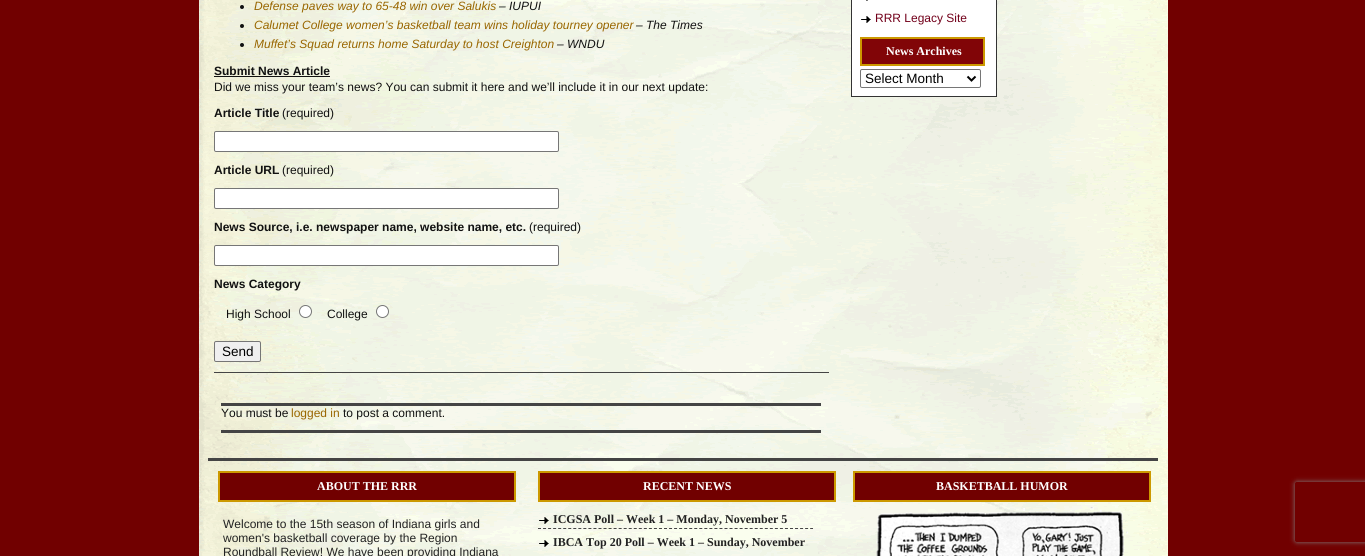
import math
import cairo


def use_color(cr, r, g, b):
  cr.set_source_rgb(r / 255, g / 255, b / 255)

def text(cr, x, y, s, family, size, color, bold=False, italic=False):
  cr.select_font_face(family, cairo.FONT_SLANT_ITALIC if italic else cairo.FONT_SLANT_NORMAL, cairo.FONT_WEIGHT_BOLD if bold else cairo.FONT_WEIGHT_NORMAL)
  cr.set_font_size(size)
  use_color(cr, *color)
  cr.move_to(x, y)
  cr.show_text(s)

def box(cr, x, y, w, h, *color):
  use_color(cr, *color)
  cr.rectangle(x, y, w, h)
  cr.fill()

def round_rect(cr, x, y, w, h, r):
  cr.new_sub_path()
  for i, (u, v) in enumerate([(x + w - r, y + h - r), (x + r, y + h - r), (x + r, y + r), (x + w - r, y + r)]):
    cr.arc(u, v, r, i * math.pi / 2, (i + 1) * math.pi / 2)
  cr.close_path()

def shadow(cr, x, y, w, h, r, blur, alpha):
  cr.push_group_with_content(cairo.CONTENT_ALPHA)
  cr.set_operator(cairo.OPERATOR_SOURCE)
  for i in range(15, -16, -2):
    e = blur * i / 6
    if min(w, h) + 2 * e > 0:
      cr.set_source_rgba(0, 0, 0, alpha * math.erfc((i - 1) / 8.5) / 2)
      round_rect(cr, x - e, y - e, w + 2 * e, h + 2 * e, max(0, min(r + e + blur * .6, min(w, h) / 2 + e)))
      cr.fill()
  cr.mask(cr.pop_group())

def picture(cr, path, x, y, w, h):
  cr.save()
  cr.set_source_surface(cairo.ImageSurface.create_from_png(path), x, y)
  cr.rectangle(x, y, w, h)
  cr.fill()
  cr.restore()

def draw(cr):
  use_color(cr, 113, 0, 0)
  cr.paint()
  picture(cr, "img_01.png", 199, 0, 969, 556)
  box(cr, 214, 372, 615, 1, 68, 68, 68)
  use_color(cr, 17, 17, 17)
  cr.arc(242, 7, 2, 0, 2 * math.pi)
  cr.fill()
  cr.arc(242, 26, 2, 0, 2 * math.pi)
  cr.fill()
  cr.arc(242, 45, 2, 0, 2 * math.pi)
  cr.fill()
  box(cr, 214, 76, 116, 1, 17, 17, 17)
  use_color(cr, 255, 255, 255)
  round_rect(cr, 214.5, 131.5, 344, 20, 1.5)
  cr.fill_preserve()
  use_color(cr, 118, 118, 118)
  cr.set_line_width(1)
  cr.stroke()
  use_color(cr, 255, 255, 255)
  round_rect(cr, 214.5, 188.5, 344, 20, 1.5)
  cr.fill_preserve()
  use_color(cr, 118, 118, 118)
  cr.stroke()
  use_color(cr, 255, 255, 255)
  round_rect(cr, 214.5, 245.5, 344, 20, 1.5)
  cr.fill_preserve()
  use_color(cr, 118, 118, 118)
  cr.stroke()
  use_color(cr, 255, 255, 255)
  cr.arc(305.5, 311.5, 6, 0, 2 * math.pi)
  cr.fill_preserve()
  use_color(cr, 118, 118, 118)
  cr.stroke()
  use_color(cr, 255, 255, 255)
  cr.arc(382.5, 311.5, 6, 0, 2 * math.pi)
  cr.fill_preserve()
  use_color(cr, 118, 118, 118)
  cr.stroke()
  use_color(cr, 239, 239, 239)
  round_rect(cr, 214.5, 341.5, 46, 20, 1.5)
  cr.fill_preserve()
  use_color(cr, 118, 118, 118)
  cr.stroke()
  box(cr, 221, 403, 600, 3, 68, 68, 68)
  box(cr, 221, 430, 600, 3, 68, 68, 68)
  use_color(cr, 255, 255, 255)
  cr.rectangle(851.5, -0.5, 145, 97)
  cr.fill_preserve()
  use_color(cr, 51, 51, 51)
  cr.stroke()
  picture(cr, "img_02.png", 866, 0, 2, 1)
  picture(cr, "img_03.png", 861, 16, 10, 7)
  use_color(cr, 129, 5, 7)
  cr.rectangle(861, 38, 123, 27)
  cr.fill_preserve()
  use_color(cr, 204, 153, 0)
  cr.set_line_width(2)
  cr.stroke()
  round_rect(cr, 860.5, 69.5, 120, 18, 1.5)
  use_color(cr, 118, 118, 118)
  cr.set_line_width(1)
  cr.stroke()
  cr.new_path()
  cr.move_to(967.5, 76.5)
  cr.line_to(971.5, 80.5)
  cr.line_to(975.5, 76.5)
  use_color(cr, 0, 0, 0)
  cr.set_line_width(2)
  cr.stroke()
  box(cr, 208, 458, 950, 3, 68, 68, 68)
  use_color(cr, 113, 0, 0)
  cr.rectangle(219, 472, 296, 29)
  cr.fill_preserve()
  use_color(cr, 204, 153, 0)
  cr.stroke()
  use_color(cr, 113, 0, 0)
  cr.rectangle(539, 472, 296, 29)
  cr.fill_preserve()
  use_color(cr, 204, 153, 0)
  cr.stroke()
  picture(cr, "img_04.png", 539, 517, 10, 7)
  cr.new_path()
  cr.move_to(538, 528.5)
  cr.line_to(813, 528.5)
  use_color(cr, 68, 68, 68)
  cr.set_line_width(1)
  cr.set_dash([3, 2.04])
  cr.stroke()
  picture(cr, "img_05.png", 539, 540, 10, 7)
  use_color(cr, 113, 0, 0)
  cr.rectangle(854, 472, 296, 29)
  cr.fill_preserve()
  use_color(cr, 204, 153, 0)
  cr.set_line_width(2)
  cr.set_dash([])
  cr.stroke()
  picture(cr, "img_06.png", 876, 507, 252, 49)
  cr.save()
  cr.set_fill_rule(cairo.FILL_RULE_EVEN_ODD)
  cr.new_path()
  cr.move_to(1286, 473)
  cr.line_to(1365, 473)
  cr.line_to(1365, 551)
  cr.line_to(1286, 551)
  cr.close_path()
  cr.move_to(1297, 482)
  cr.line_to(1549, 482)
  cr.curve_to(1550, 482, 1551, 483, 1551, 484)
  cr.line_to(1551, 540)
  cr.curve_to(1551, 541, 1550, 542, 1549, 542)
  cr.line_to(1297, 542)
  cr.curve_to(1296, 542, 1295, 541, 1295, 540)
  cr.line_to(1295, 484)
  cr.curve_to(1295, 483, 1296, 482, 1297, 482)
  cr.close_path()
  cr.clip()
  use_color(cr, 128, 128, 128)
  shadow(cr, 1295, 482, 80, 60, 2, 2.5, 1)
  cr.restore()
  text(cr, 254, 10, "Defense paves way to 65-48 win over Salukis", "Liberation Sans", 12, (153, 102, 0), italic=True)
  text(cr, 499, 10, "– IUPUI", "Liberation Sans", 12, (17, 17, 17), italic=True)
  text(cr, 254, 29, "Calumet College women’s basketball team wins holiday tourney opener", "Liberation Sans", 12, (153, 102, 0), italic=True)
  text(cr, 636, 29, "– The Times", "Liberation Sans", 12, (17, 17, 17), italic=True)
  text(cr, 254, 48, "Muffet’s Squad returns home Saturday to host Creighton", "Liberation Sans", 12, (153, 102, 0), italic=True)
  text(cr, 557, 48, "– WNDU", "Liberation Sans", 12, (17, 17, 17), italic=True)
  text(cr, 214, 75, "Submit News Article", "Liberation Sans", 12, (17, 17, 17), bold=True)
  text(cr, 214, 91, "Did we miss your team’s news? You can submit it here and we’ll include it in our next update:", "Liberation Sans", 12, (17, 17, 17))
  text(cr, 214, 117, "Article Title", "Liberation Sans", 12, (17, 17, 17), bold=True)
  text(cr, 282, 117, "(required)", "Liberation Sans", 12, (17, 17, 17))
  text(cr, 214, 174, "Article URL", "Liberation Sans", 12, (17, 17, 17), bold=True)
  text(cr, 282, 174, "(required)", "Liberation Sans", 12, (17, 17, 17))
  text(cr, 214, 231, "News Source, i.e. newspaper name, website name, etc.", "Liberation Sans", 12, (17, 17, 17), bold=True)
  text(cr, 529, 231, "(required)", "Liberation Sans", 12, (17, 17, 17))
  text(cr, 214, 288, "News Category", "Liberation Sans", 12, (17, 17, 17), bold=True)
  text(cr, 226, 318, "High School", "Liberation Sans", 12, (17, 17, 17))
  text(cr, 327, 318, "College", "Liberation Sans", 12, (17, 17, 17))
  text(cr, 222, 356, "Send", "Liberation Sans", 13.5, (0, 0, 0))
  text(cr, 221, 417, "You must be", "Liberation Sans", 12, (17, 17, 17))
  text(cr, 291, 417, "logged in", "Liberation Sans", 12, (153, 102, 0))
  text(cr, 343, 417, "to post a comment.", "Liberation Sans", 12, (17, 17, 17))
  text(cr, 875, 22, "RRR Legacy Site", "Liberation Sans", 12, (114, 0, 26))
  text(cr, 886, 55, "News Archives", "Liberation Serif", 12, (255, 255, 255), bold=True)
  text(cr, 865, 83, "Select Month", "Liberation Sans", 13.5, (0, 0, 0))
  text(cr, 317, 490, "ABOUT THE RRR", "Liberation Serif", 12, (255, 255, 255), bold=True)
  text(cr, 223, 528, "Welcome to the 15th season of Indiana girls and", "Liberation Sans", 12, (34, 34, 34))
  text(cr, 223, 542, "women's basketball coverage by the Region", "Liberation Sans", 12, (34, 34, 34))
  text(cr, 223, 556, "Roundball Review! We have been providing Indiana", "Liberation Sans", 12, (34, 34, 34))
  text(cr, 643, 490, "RECENT NEWS", "Liberation Serif", 12, (255, 255, 255), bold=True)
  text(cr, 553, 523, "ICGSA Poll – Week 1 – Monday, November 5", "Liberation Serif", 12, (34, 34, 34), bold=True)
  text(cr, 553, 546, "IBCA Top 20 Poll – Week 1 – Sunday, November", "Liberation Serif", 12, (34, 34, 34), bold=True)
  text(cr, 936, 490, "BASKETBALL HUMOR", "Liberation Serif", 12, (255, 255, 255), bold=True)


surface = cairo.ImageSurface(cairo.FORMAT_RGB24, 1365, 556)
cr = cairo.Context(surface)
options = cairo.FontOptions()
options.set_hint_metrics(cairo.HINT_METRICS_OFF)
options.set_hint_style(cairo.HINT_STYLE_NONE)
cr.set_font_options(options)
cr.set_miter_limit(4)
draw(cr)
surface.write_to_png("out.png")
